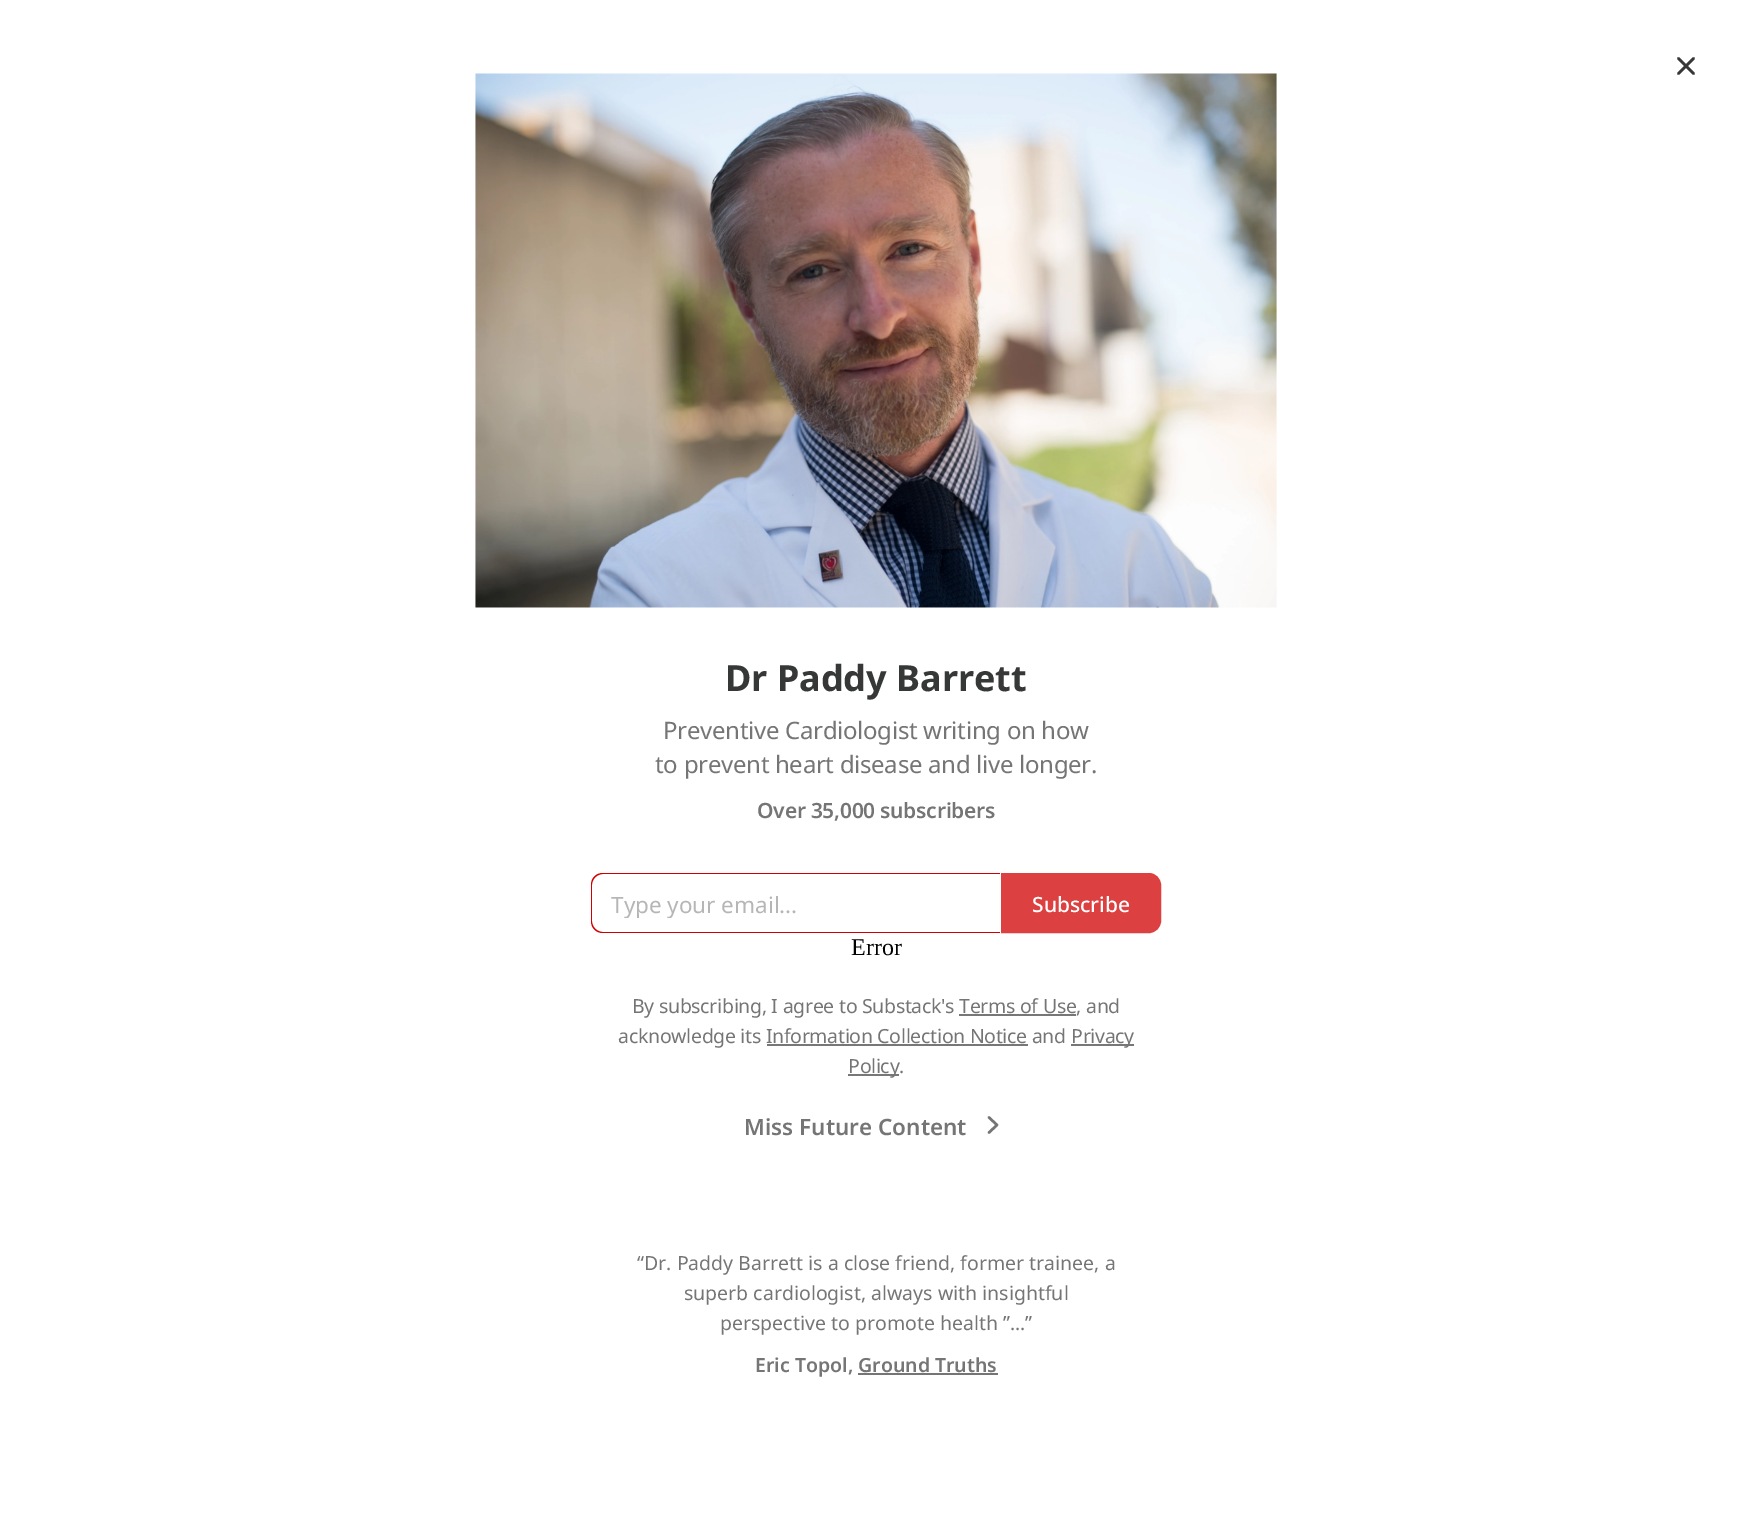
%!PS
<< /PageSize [1751 1528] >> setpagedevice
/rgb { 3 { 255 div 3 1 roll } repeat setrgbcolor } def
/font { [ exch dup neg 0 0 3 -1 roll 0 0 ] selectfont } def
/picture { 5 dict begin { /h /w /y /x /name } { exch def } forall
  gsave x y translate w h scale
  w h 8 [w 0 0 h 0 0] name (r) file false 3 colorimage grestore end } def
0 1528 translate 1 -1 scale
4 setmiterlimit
255 255 255 rgb
0 0 1751 1528 rectfill
54 55 55 rgb
2.5 setlinewidth
1 setlinecap
1 setlinejoin
1693.5 58.5 moveto 1678.5 73.5 lineto 1678.5 58.5 moveto 1693.5 73.5 lineto stroke
(img/1.rgb) 475 73 802 535 picture
209 0 0 rgb
603 873 moveto 1000 873 lineto 1000 933 lineto 603 933 lineto 596 933 591 928 591 921 curveto 591 885 lineto 591 878 596 873 603 873 curveto closepath 603 874 moveto 1000 874 lineto 1000 932 lineto 603 932 lineto 597 932 592 927 592 921 curveto 592 885 lineto 592 879 597 874 603 874 curveto closepath eofill
221 64 64 rgb
1002 874 moveto 1149 874 lineto 1155 874 1160 879 1160 885 curveto 1160 921 lineto 1160 927 1155 932 1149 932 curveto 1002 932 lineto closepath gsave fill grestore
2 setlinewidth
0 setlinecap
0 setlinejoin
stroke
119 119 119 rgb
1071 1044 63 2 rectfill
848 1074 51 2 rectfill
117 117 117 rgb
2.5 setlinewidth
1 setlinecap
1 setlinejoin
989 1132.5 moveto 997 1125 lineto 989 1117.5 lineto stroke
858 1373 140 2 rectfill
/NotoSans-Bold 36 font
54 55 55 rgb
725 691 moveto (Dr Paddy Barrett) show
/NotoSans-Regular 24 font
117 117 117 rgb
663 739 moveto -0.3 0 (Preventive Cardiologist writing on how) ashow
655 773 moveto -0.3 0 (to prevent heart disease and live longer.) ashow
/NotoSans-SemiBold 21 font
757 818 moveto -0.25 0 (Over 35,000 subscribers) ashow
gsave
611 888 372 30 rectclip
/NotoSans-Regular 22.5 font
182 182 182 rgb
611 913 moveto (Type your email...) show
grestore
/NotoSans-Medium 21 font
255 255 255 rgb
1032 912 moveto (Subscribe) show
/LiberationSerif-Regular 24 font
0 0 0 rgb
851 955 moveto (Error) show
/NotoSans-Regular 19.5 font
117 117 117 rgb
632 1013 moveto -0.3 0 (By subscribing, I agree to Substack's Terms of Use, and) ashow
119 119 119 rgb
959 1014 117 2 rectfill
117 117 117 rgb
618 1043 moveto -0.3 0 (acknowledge its Information Collection Notice and) ashow
1071 1043 moveto -0.3 0 (Privacy) ashow
119 119 119 rgb
767 1044 261 2 rectfill
117 117 117 rgb
848 1073 moveto -0.3 0 (Policy.) ashow
/NotoSans-SemiBold 22.5 font
744 1135 moveto (Miss Future Content) show
/NotoSans-Regular 19.5 font
[
  [(“Dr. Paddy Barrett is a close friend, former trainee, a) 637 1270]
  [(superb cardiologist, always with insightful) 684 1300]
  [(perspective to promote health ”...”) 720 1330]
] { aload pop moveto show } forall
/NotoSans-SemiBold 19.5 font
755 1372 moveto (Eric Topol, Ground Truths) show
showpage
